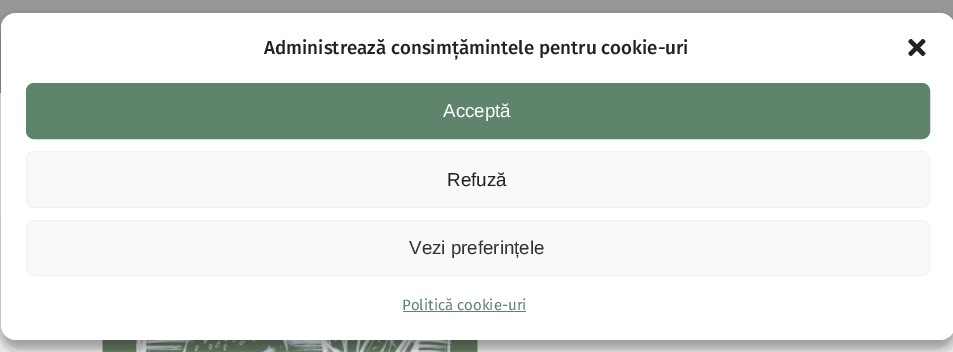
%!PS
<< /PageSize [953 352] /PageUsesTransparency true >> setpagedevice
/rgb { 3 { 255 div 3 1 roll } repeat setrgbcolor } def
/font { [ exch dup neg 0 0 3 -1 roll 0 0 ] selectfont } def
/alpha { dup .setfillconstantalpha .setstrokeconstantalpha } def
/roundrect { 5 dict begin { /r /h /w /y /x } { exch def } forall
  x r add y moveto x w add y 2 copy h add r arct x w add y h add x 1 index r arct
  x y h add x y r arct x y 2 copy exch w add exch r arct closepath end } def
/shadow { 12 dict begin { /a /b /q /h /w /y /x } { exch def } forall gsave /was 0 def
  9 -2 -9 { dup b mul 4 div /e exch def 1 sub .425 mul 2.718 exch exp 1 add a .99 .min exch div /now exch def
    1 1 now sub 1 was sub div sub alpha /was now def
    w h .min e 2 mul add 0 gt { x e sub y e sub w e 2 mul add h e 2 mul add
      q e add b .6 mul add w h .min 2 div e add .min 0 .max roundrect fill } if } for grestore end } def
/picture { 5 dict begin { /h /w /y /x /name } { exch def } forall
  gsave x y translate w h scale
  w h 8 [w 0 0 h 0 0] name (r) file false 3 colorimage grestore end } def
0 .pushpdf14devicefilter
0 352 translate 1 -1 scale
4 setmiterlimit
246 246 246 rgb
0 0 953 352 rectfill
152 152 152 rgb
0 0 953 93 rectfill
255 255 255 rgb
0 93 1 125 rectfill
(img/1.rgb) 102 340 376 12 picture
gsave
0 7 moveto 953 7 lineto 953 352 lineto 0 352 lineto closepath 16 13 moveto 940 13 lineto 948.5 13 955 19.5 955 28 curveto 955 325 lineto 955 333.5 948.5 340 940 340 curveto 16 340 lineto 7.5 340 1 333.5 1 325 curveto 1 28 lineto 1 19.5 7.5 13 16 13 curveto closepath eoclip newpath
0 0 0 rgb
1 20 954 328 15 4 0.23 shadow
grestore
gsave
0 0 moveto 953 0 lineto 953 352 lineto 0 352 lineto closepath 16 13 moveto 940 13 lineto 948.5 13 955 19.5 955 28 curveto 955 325 lineto 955 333.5 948.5 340 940 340 curveto 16 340 lineto 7.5 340 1 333.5 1 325 curveto 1 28 lineto 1 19.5 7.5 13 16 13 curveto closepath eoclip newpath
0 0 0 rgb
1 25 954 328 15 12.5 0.19 shadow
grestore
1 13 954 327 15 roundrect fill
(img/2.rgb) 908 38 18 19 picture
94 132 107 rgb
26.5 83.5 903 55 7.5 roundrect gsave fill grestore
stroke
249 249 249 rgb
26.5 151.5 903 56 7.5 roundrect gsave fill grestore
242 242 242 rgb
stroke
249 249 249 rgb
26.5 220.5 903 55 7.5 roundrect gsave fill grestore
242 242 242 rgb
stroke
94 132 107 rgb
403 311 123 1 rectfill
/FiraSans-Medium 18.75 font
34 34 34 rgb
264 54 moveto (Administrează consimțămintele pentru cookie-uri) show
/LiberationSans-Regular 18.75 font
255 255 255 rgb
443 117 moveto (Acceptă) show
34 34 34 rgb
447 186 moveto (Refuză) show
51 51 51 rgb
409 254 moveto (Vezi preferințele) show
/FiraSans-Regular 15 font
94 132 107 rgb
402 310 moveto (Politică cookie-uri) show
.poppdf14devicefilter showpage
